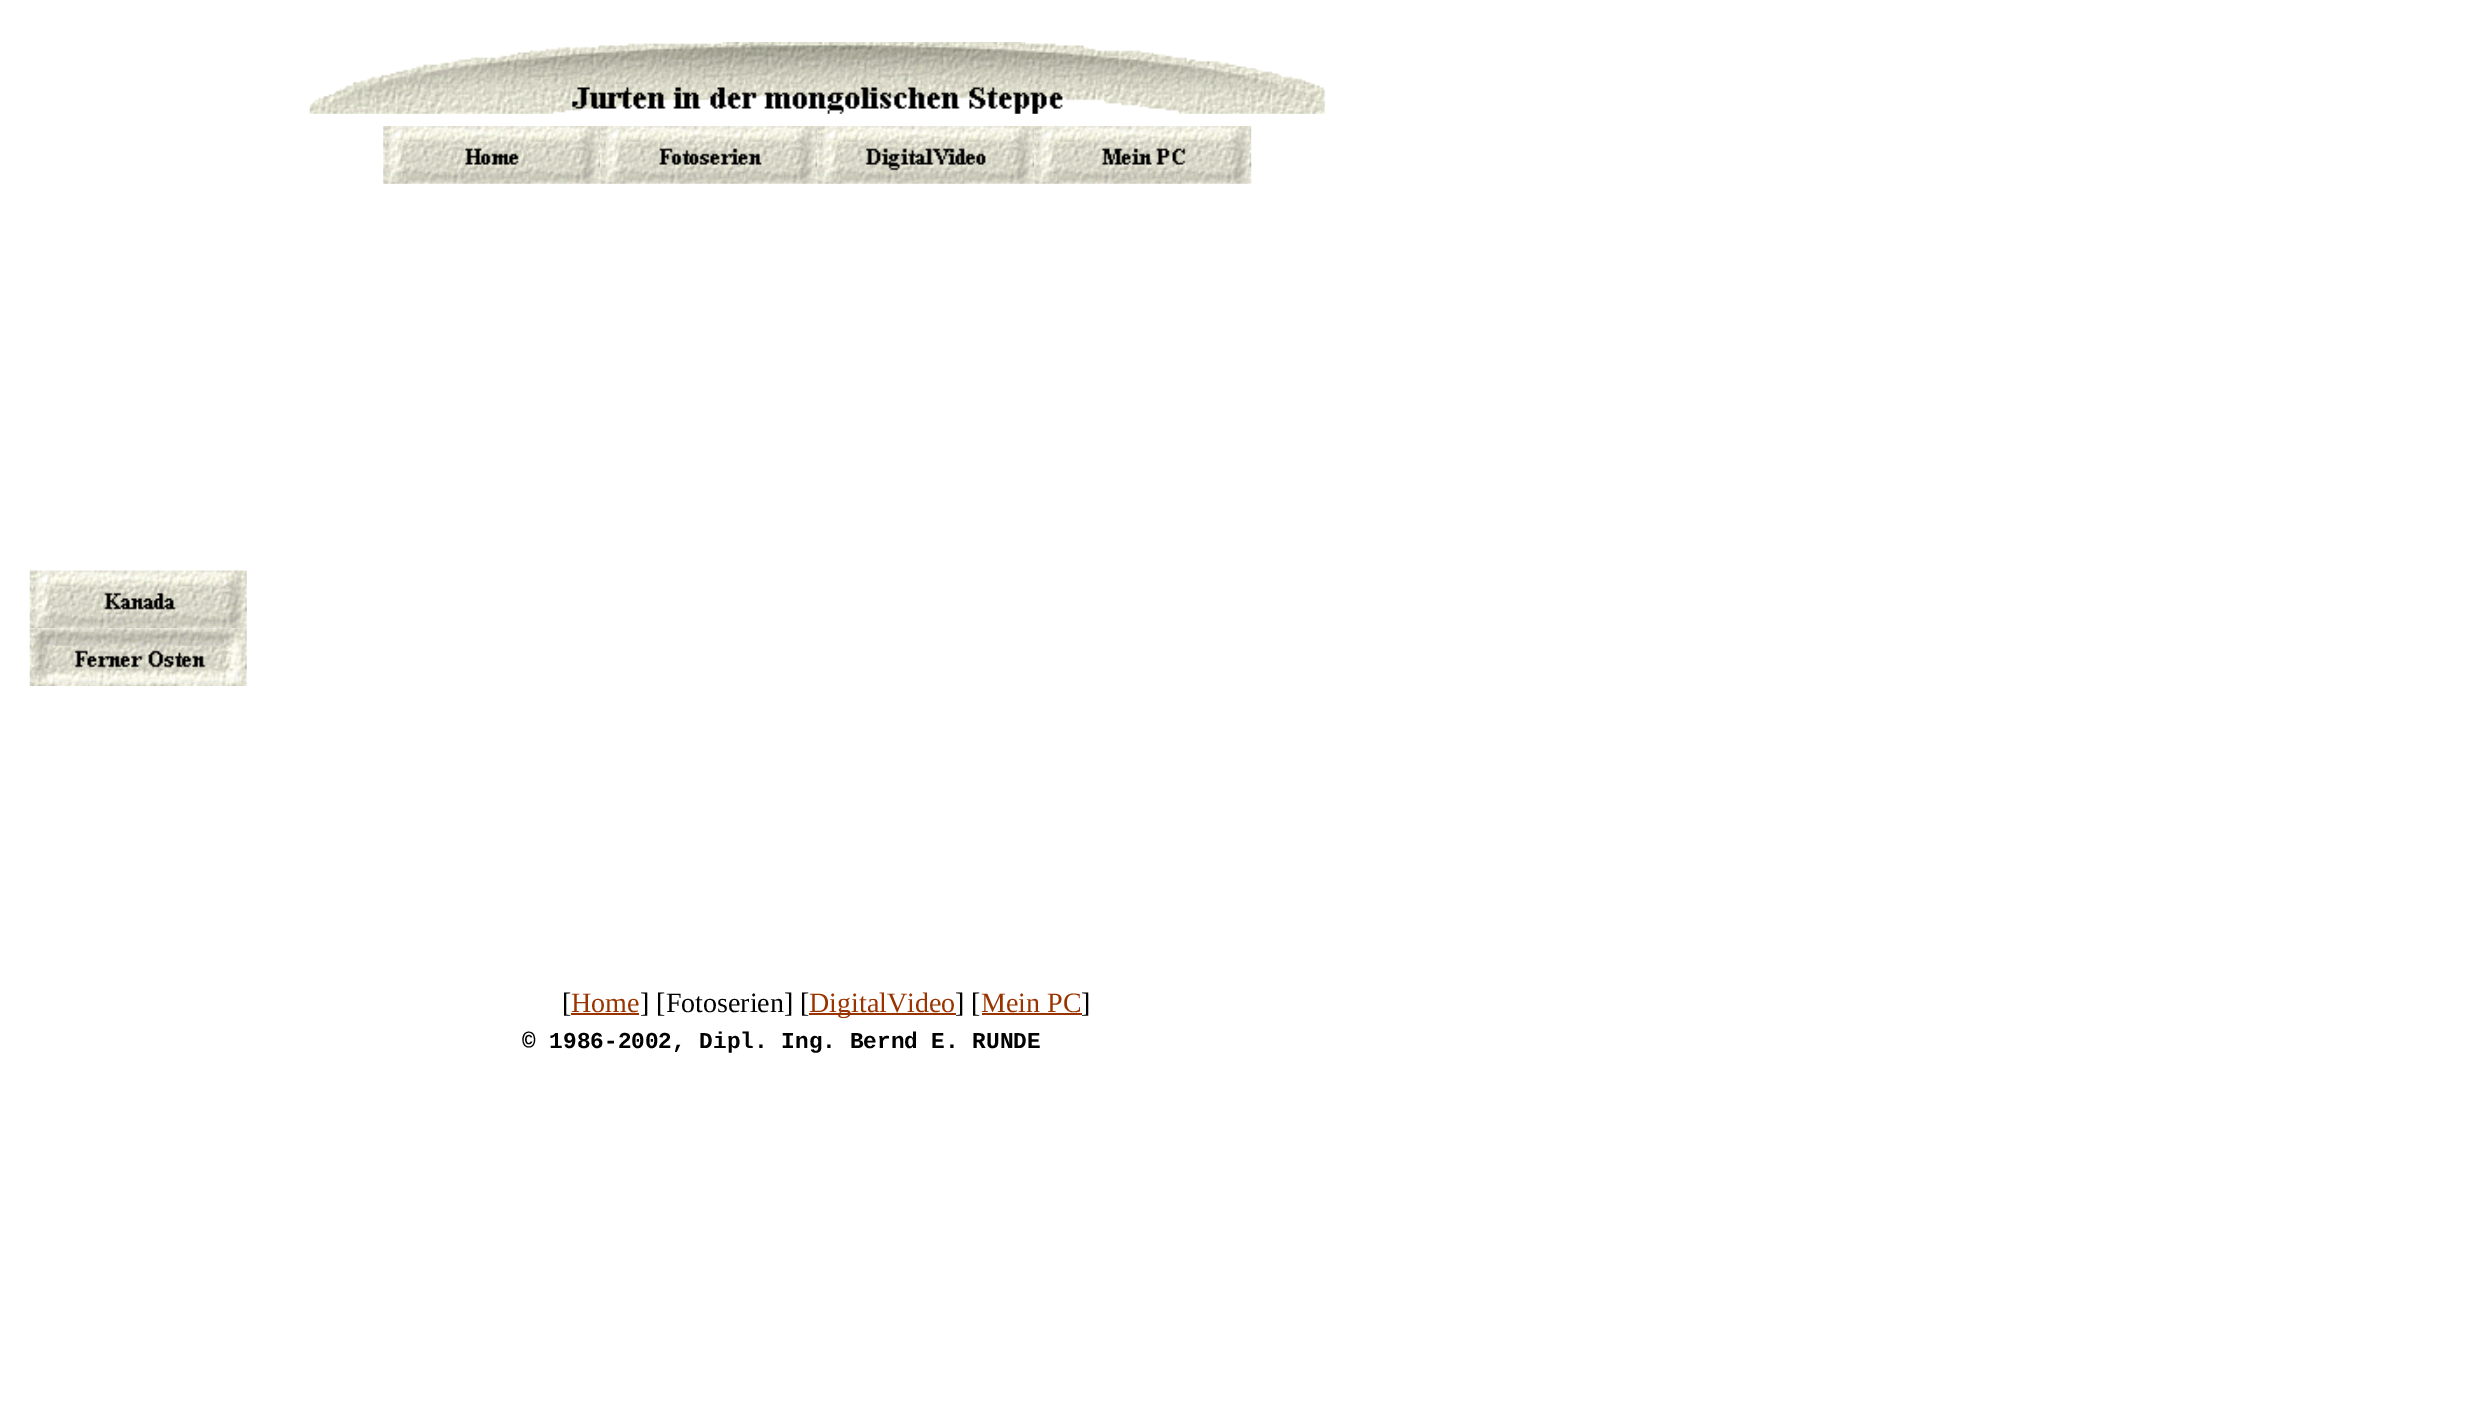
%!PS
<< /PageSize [2475 1420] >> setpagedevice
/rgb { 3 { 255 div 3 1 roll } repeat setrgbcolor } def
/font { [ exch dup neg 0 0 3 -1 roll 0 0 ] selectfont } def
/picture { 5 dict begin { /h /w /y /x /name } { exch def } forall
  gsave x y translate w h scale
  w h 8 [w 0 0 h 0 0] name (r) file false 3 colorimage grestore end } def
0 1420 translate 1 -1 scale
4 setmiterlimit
255 255 255 rgb
0 0 2475 1420 rectfill
(img/1.rgb) 29 570 218 59 picture
(img/2.rgb) 29 628 218 58 picture
(img/3.rgb) 309 42 1016 72 picture
(img/4.rgb) 383 126 218 58 picture
(img/5.rgb) 600 126 218 58 picture
(img/6.rgb) 817 126 218 58 picture
(img/7.rgb) 1034 126 218 58 picture
[
  [571 1013 68 2 153 51 0]
  [809 1013 147 2 153 51 0]
  [982 1013 100 2 153 51 0]
] { aload pop rgb rectfill } forall
/LiberationSerif-Regular 28 font
0 0 0 rgb
562 1012 moveto ([) show
153 51 0 rgb
571 1012 moveto (Home) show
0 0 0 rgb
640 1012 moveto (] [Fotoserien] [) show
153 51 0 rgb
809 1012 moveto (DigitalVideo) show
0 0 0 rgb
955 1012 moveto (] [) show
153 51 0 rgb
981 1012 moveto (Mein PC) show
0 0 0 rgb
1081 1012 moveto (]) show
/LiberationMono-Bold 22.75 font
522 1048 moveto (© 1986-2002, Dipl. Ing. Bernd E. RUNDE) show
showpage
